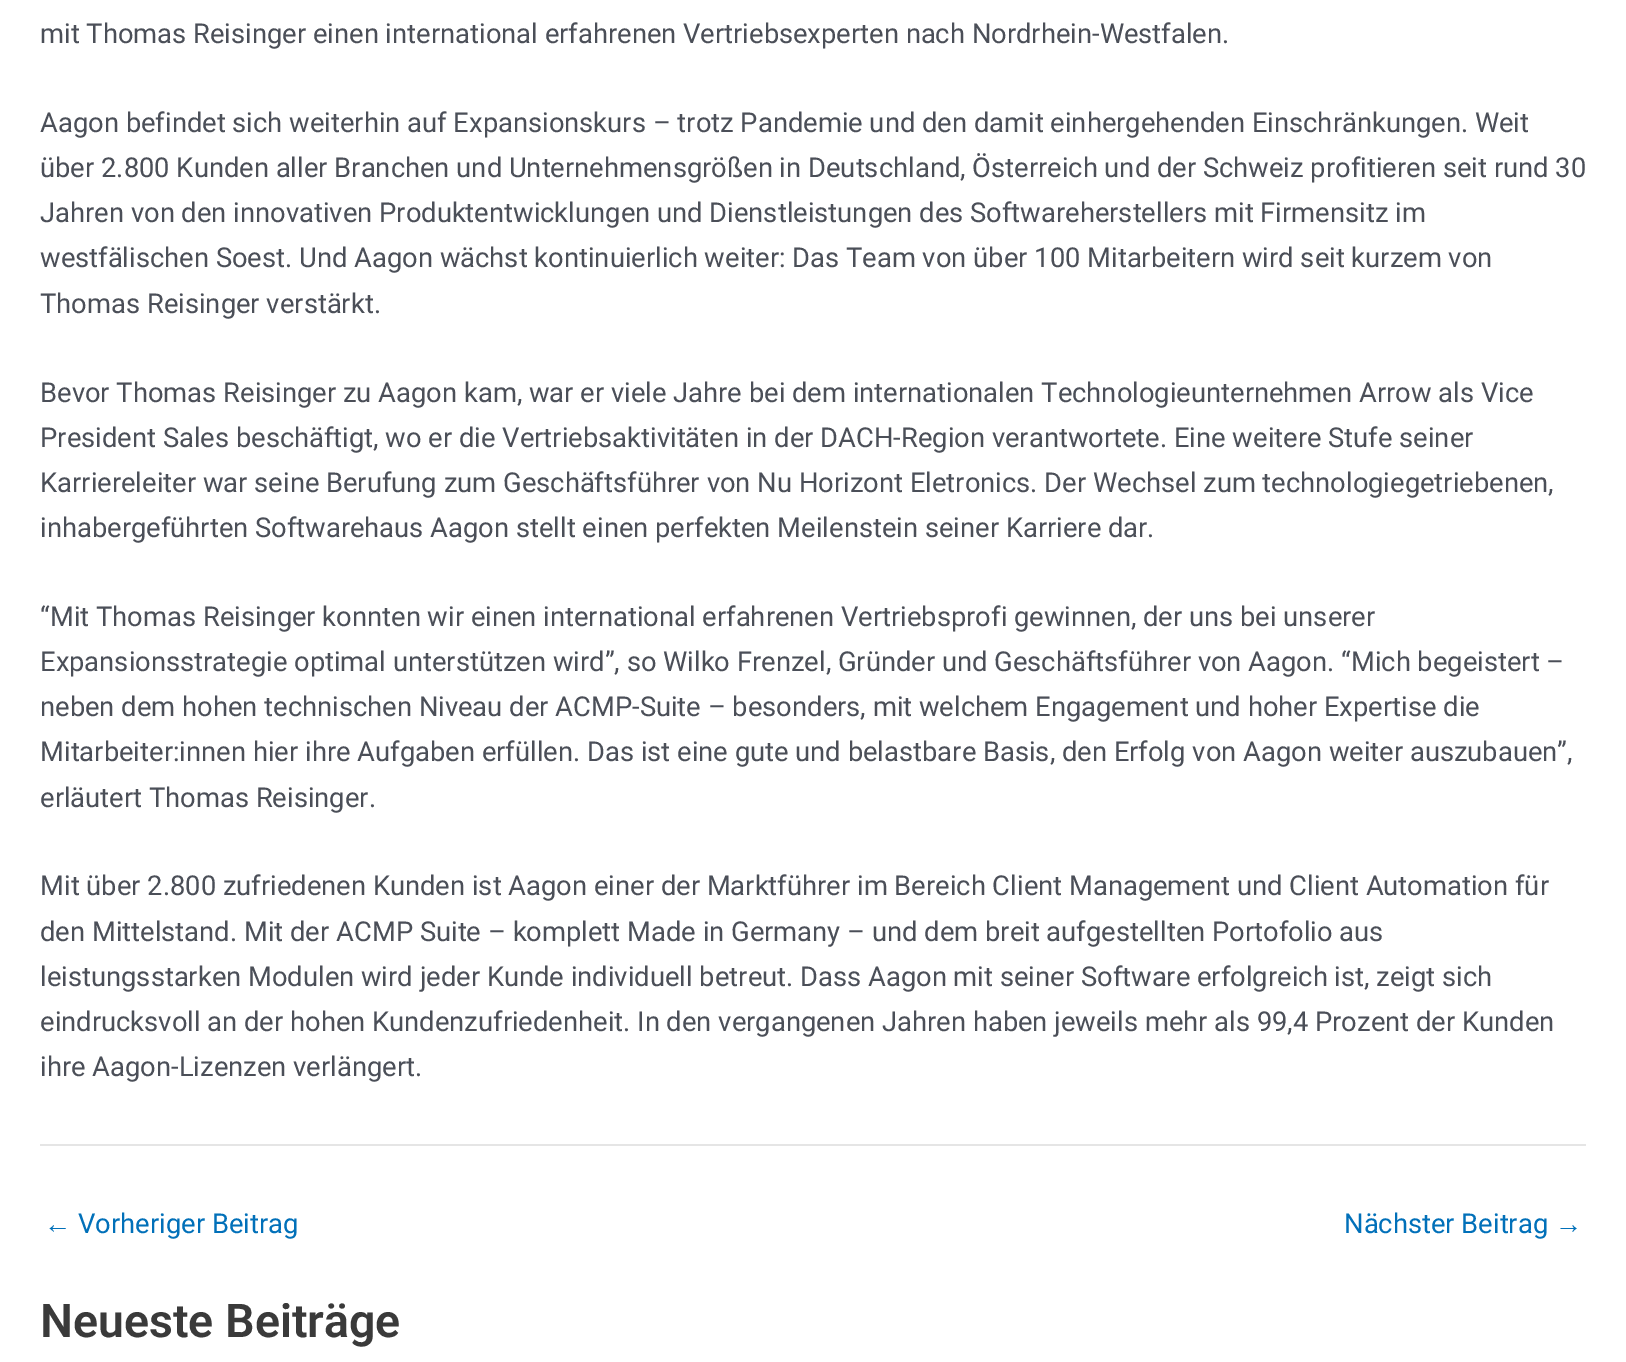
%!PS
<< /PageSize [1626 1362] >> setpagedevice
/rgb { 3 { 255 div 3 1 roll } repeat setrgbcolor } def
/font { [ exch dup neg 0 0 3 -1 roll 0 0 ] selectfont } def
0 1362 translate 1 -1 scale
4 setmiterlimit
255 255 255 rgb
0 0 1626 1362 rectfill
229 229 229 rgb
40 1144 1546 2 rectfill
/Roboto-Regular 27.35 font
75 79 88 rgb
[
  [(mit Thomas Reisinger einen international erfahrenen Vertriebsexperten nach Nordrhein-Westfalen.) 40 43]
  [(Aagon befindet sich weiterhin auf Expansionskurs – trotz Pandemie und den damit einhergehenden Einschränkungen. Weit) 40 132]
  [(über 2.800 Kunden aller Branchen und Unternehmensgrößen in Deutschland, Österreich und der Schweiz profitieren seit rund 30) 40 177]
  [(Jahren von den innovativen Produktentwicklungen und Dienstleistungen des Softwareherstellers mit Firmensitz im) 40 222]
  [(westfälischen Soest. Und Aagon wächst kontinuierlich weiter: Das Team von über 100 Mitarbeitern wird seit kurzem von) 40 267]
  [(Thomas Reisinger verstärkt.) 40 313]
  [(Bevor Thomas Reisinger zu Aagon kam, war er viele Jahre bei dem internationalen Technologieunternehmen Arrow als Vice) 40 402]
  [(President Sales beschäftigt, wo er die Vertriebsaktivitäten in der DACH-Region verantwortete. Eine weitere Stufe seiner) 40 447]
  [(Karriereleiter war seine Berufung zum Geschäftsführer von Nu Horizont Eletronics. Der Wechsel zum technologiegetriebenen,) 40 492]
  [(inhabergeführten Softwarehaus Aagon stellt einen perfekten Meilenstein seiner Karriere dar.) 40 537]
  [(“Mit Thomas Reisinger konnten wir einen international erfahrenen Vertriebsprofi gewinnen, der uns bei unserer) 40 626]
  [(Expansionsstrategie optimal unterstützen wird”, so Wilko Frenzel, Gründer und Geschäftsführer von Aagon. “Mich begeistert –) 40 671]
  [(neben dem hohen technischen Niveau der ACMP-Suite – besonders, mit welchem Engagement und hoher Expertise die) 40 716]
  [(Mitarbeiter:innen hier ihre Aufgaben erfüllen. Das ist eine gute und belastbare Basis, den Erfolg von Aagon weiter auszubauen”,) 40 761]
  [(erläutert Thomas Reisinger.) 40 807]
  [(Mit über 2.800 zufriedenen Kunden ist Aagon einer der Marktführer im Bereich Client Management und Client Automation für) 40 895]
  [(den Mittelstand. Mit der ACMP Suite – komplett Made in Germany – und dem breit aufgestellten Portofolio aus) 40 941]
  [(leistungsstarken Modulen wird jeder Kunde individuell betreut. Dass Aagon mit seiner Software erfolgreich ist, zeigt sich) 40 986]
  [(eindrucksvoll an der hohen Kundenzufriedenheit. In den vergangenen Jahren haben jeweils mehr als 99,4 Prozent der Kunden) 40 1031]
  [(ihre Aagon-Lizenzen verlängert.) 40 1076]
] { aload pop moveto show } forall
/LiberationSans-Regular 27.35 font
1 112 185 rgb
44 1233 moveto (←) show
/Roboto-Regular 27.35 font
78 1233 moveto (Vorheriger Beitrag) show
1344 1233 moveto (Nächster Beitrag) show
/LiberationSans-Regular 27.35 font
1555 1233 moveto (→) show
/Roboto-SemiBold 46.5 font
58 58 58 rgb
40 1337 moveto (Neueste Beiträge) show
showpage
